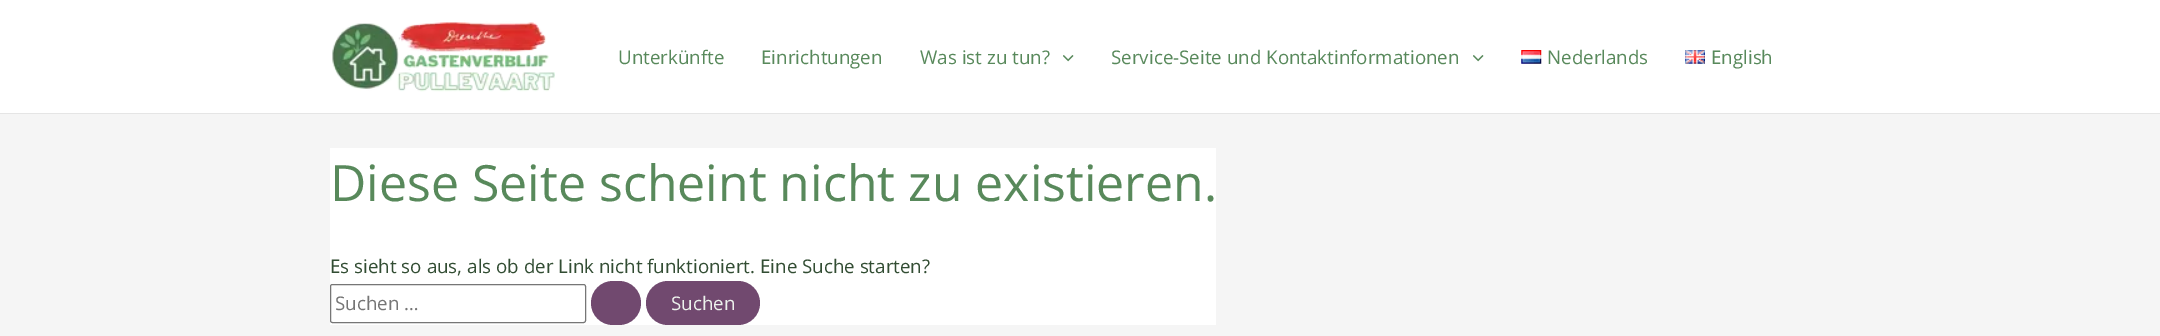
%!PS
<< /PageSize [2160 336] >> setpagedevice
/rgb { 3 { 255 div 3 1 roll } repeat setrgbcolor } def
/font { [ exch dup neg 0 0 3 -1 roll 0 0 ] selectfont } def
/roundrect { 5 dict begin { /r /h /w /y /x } { exch def } forall
  x r add y moveto x w add y 2 copy h add r arct x w add y h add x 1 index r arct
  x y h add x y r arct x y 2 copy exch w add exch r arct closepath end } def
/picture { 5 dict begin { /h /w /y /x /name } { exch def } forall
  gsave x y translate w h scale
  w h 8 [w 0 0 h 0 0] name (r) file false 3 colorimage grestore end } def
0 336 translate 1 -1 scale
4 setmiterlimit
245 245 245 rgb
0 0 2160 336 rectfill
255 255 255 rgb
0 0 2160 113 rectfill
229 229 229 rgb
0 113 2160 1 rectfill
(img/1.rgb) 332 20 223 72 picture
(img/2.rgb) 1063 55 11 7 picture
(img/2.rgb) 1473 55 11 7 picture
(img/3.rgb) 1521 50 21 14 picture
(img/4.rgb) 1685 50 20 14 picture
255 255 255 rgb
330 148 886 177 rectfill
118 118 118 rgb
330.5 284.5 255 38 2 roundrect stroke
113 73 111 rgb
591 281 50 44 22 roundrect fill
646 281 114 44 22 roundrect fill
/OpenSans-Regular 18.75 font
88 137 91 rgb
[
  [(Unterkünfte) 618 64]
  [(Einrichtungen) 761 64]
  [(Was ist zu tun?) 920 64]
  [(Service-Seite und Kontaktinformationen) 1111 64]
  [(Nederlands) 1547 64]
  [(English) 1711 64]
] { aload pop moveto show } forall
/OpenSans-Regular 50 font
330 201 moveto (Diese Seite scheint nicht zu existieren.) show
/OpenSans-Regular 18.75 font
50 77 51 rgb
330 273 moveto (Es sieht so aus, als ob der Link nicht funktioniert. Eine Suche starten?) show
117 117 117 rgb
335 310 moveto (Suchen …) show
237 243 237 rgb
671 310 moveto (Suchen) show
showpage
